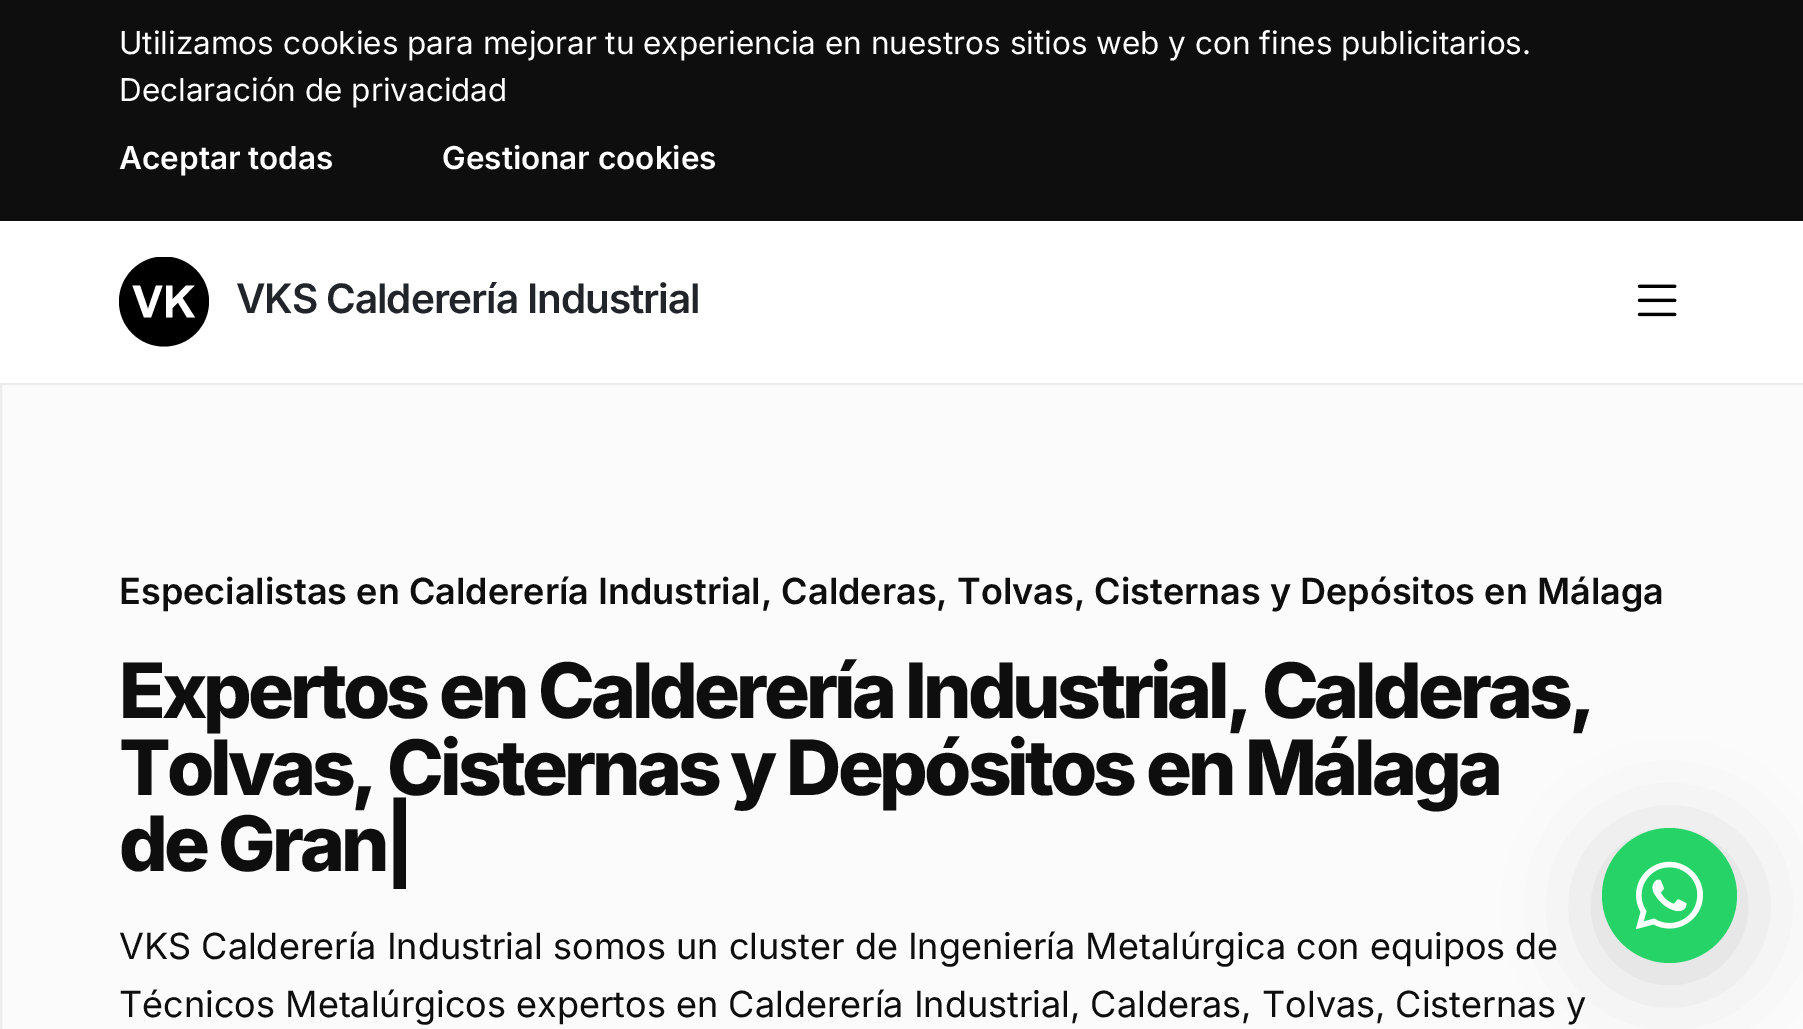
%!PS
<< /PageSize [1803 1029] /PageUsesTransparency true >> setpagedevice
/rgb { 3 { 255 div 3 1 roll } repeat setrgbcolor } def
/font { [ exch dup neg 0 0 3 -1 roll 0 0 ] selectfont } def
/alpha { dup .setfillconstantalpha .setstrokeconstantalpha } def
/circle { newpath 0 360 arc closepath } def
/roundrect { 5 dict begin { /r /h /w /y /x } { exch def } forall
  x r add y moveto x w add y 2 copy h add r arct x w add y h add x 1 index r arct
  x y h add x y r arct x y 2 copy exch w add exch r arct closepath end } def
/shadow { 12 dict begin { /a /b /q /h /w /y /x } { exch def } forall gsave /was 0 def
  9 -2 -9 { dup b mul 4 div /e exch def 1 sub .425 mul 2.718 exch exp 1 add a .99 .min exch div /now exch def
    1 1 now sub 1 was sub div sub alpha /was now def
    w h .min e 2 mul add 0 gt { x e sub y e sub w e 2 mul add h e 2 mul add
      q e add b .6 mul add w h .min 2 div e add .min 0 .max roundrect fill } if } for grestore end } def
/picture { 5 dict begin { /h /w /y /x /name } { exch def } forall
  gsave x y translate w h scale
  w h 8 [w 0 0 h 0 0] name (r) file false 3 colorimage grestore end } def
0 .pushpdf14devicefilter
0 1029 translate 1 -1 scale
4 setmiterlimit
255 255 255 rgb
0 0 1803 1029 rectfill
14 14 14 rgb
0 0 1803 221 rectfill
gsave
119 257 90 90 rectclip
0 0 0 rgb
164 301.5 45 circle fill
grestore
255 255 255 rgb
144 317.5 moveto 132.5 285.5 lineto 140 285.5 lineto 148 309 lineto 156 285.5 lineto 162.5 285.5 lineto 151 317.5 lineto closepath 166 317.5 moveto 166 285.5 lineto 172.5 285.5 lineto 172.5 299.5 lineto 186 285.5 lineto 194.5 285.5 lineto 182.5 298 lineto 195 317.5 lineto 187 317.5 lineto 178 302.5 lineto 172.5 308 lineto 172.5 317.5 lineto closepath fill
(img/1.rgb) 1637 284 40 33 picture
251 251 251 rgb
1 384 moveto 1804 384 lineto 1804 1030 lineto 1 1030 lineto closepath gsave fill grestore
236 236 236 rgb
2 setlinewidth
stroke
0 0 0 rgb
1602 839 135 135 67.5 45 0.16 shadow
37 211 102 rgb
1669.5 895.5 67.5 circle fill
(img/2.rgb) 1635 861 68 69 picture
/Inter-Regular 31.5 font
255 255 255 rgb
119 54 moveto (Utilizamos cookies para mejorar tu experiencia en nuestros sitios web y con fines publicitarios.) show
119 101 moveto (Declaración de privacidad) show
/Inter-SemiBold 31.5 font
119 169 moveto (Aceptar todas) show
442 169 moveto (Gestionar cookies) show
/Inter-SemiBold 40.5 font
33 37 41 rgb
236 313 moveto -1.1 0 (VKS Calderería Industrial) ashow
/Inter-SemiBold 36 font
14 14 14 rgb
119 604 moveto (Especialistas en Calderería Industrial, Calderas, Tolvas, Cisternas y Depósitos en Málaga) show
/Inter-ExtraBold 76.5 font
119 718 moveto -4.05 0 (Expertos en Calderería Industrial, Calderas,) ashow
119 795 moveto -4.05 0 (Tolvas, Cisternas y Depósitos en Málaga) ashow
119 871 moveto -4.05 0 (de Gran|) ashow
/Inter-Regular 36 font
119 959 moveto (VKS Calderería Industrial somos un cluster de Ingeniería Metalúrgica con equipos de) show
119 1017 moveto (Técnicos Metalúrgicos expertos en Calderería Industrial, Calderas, Tolvas, Cisternas y) show
.poppdf14devicefilter showpage
